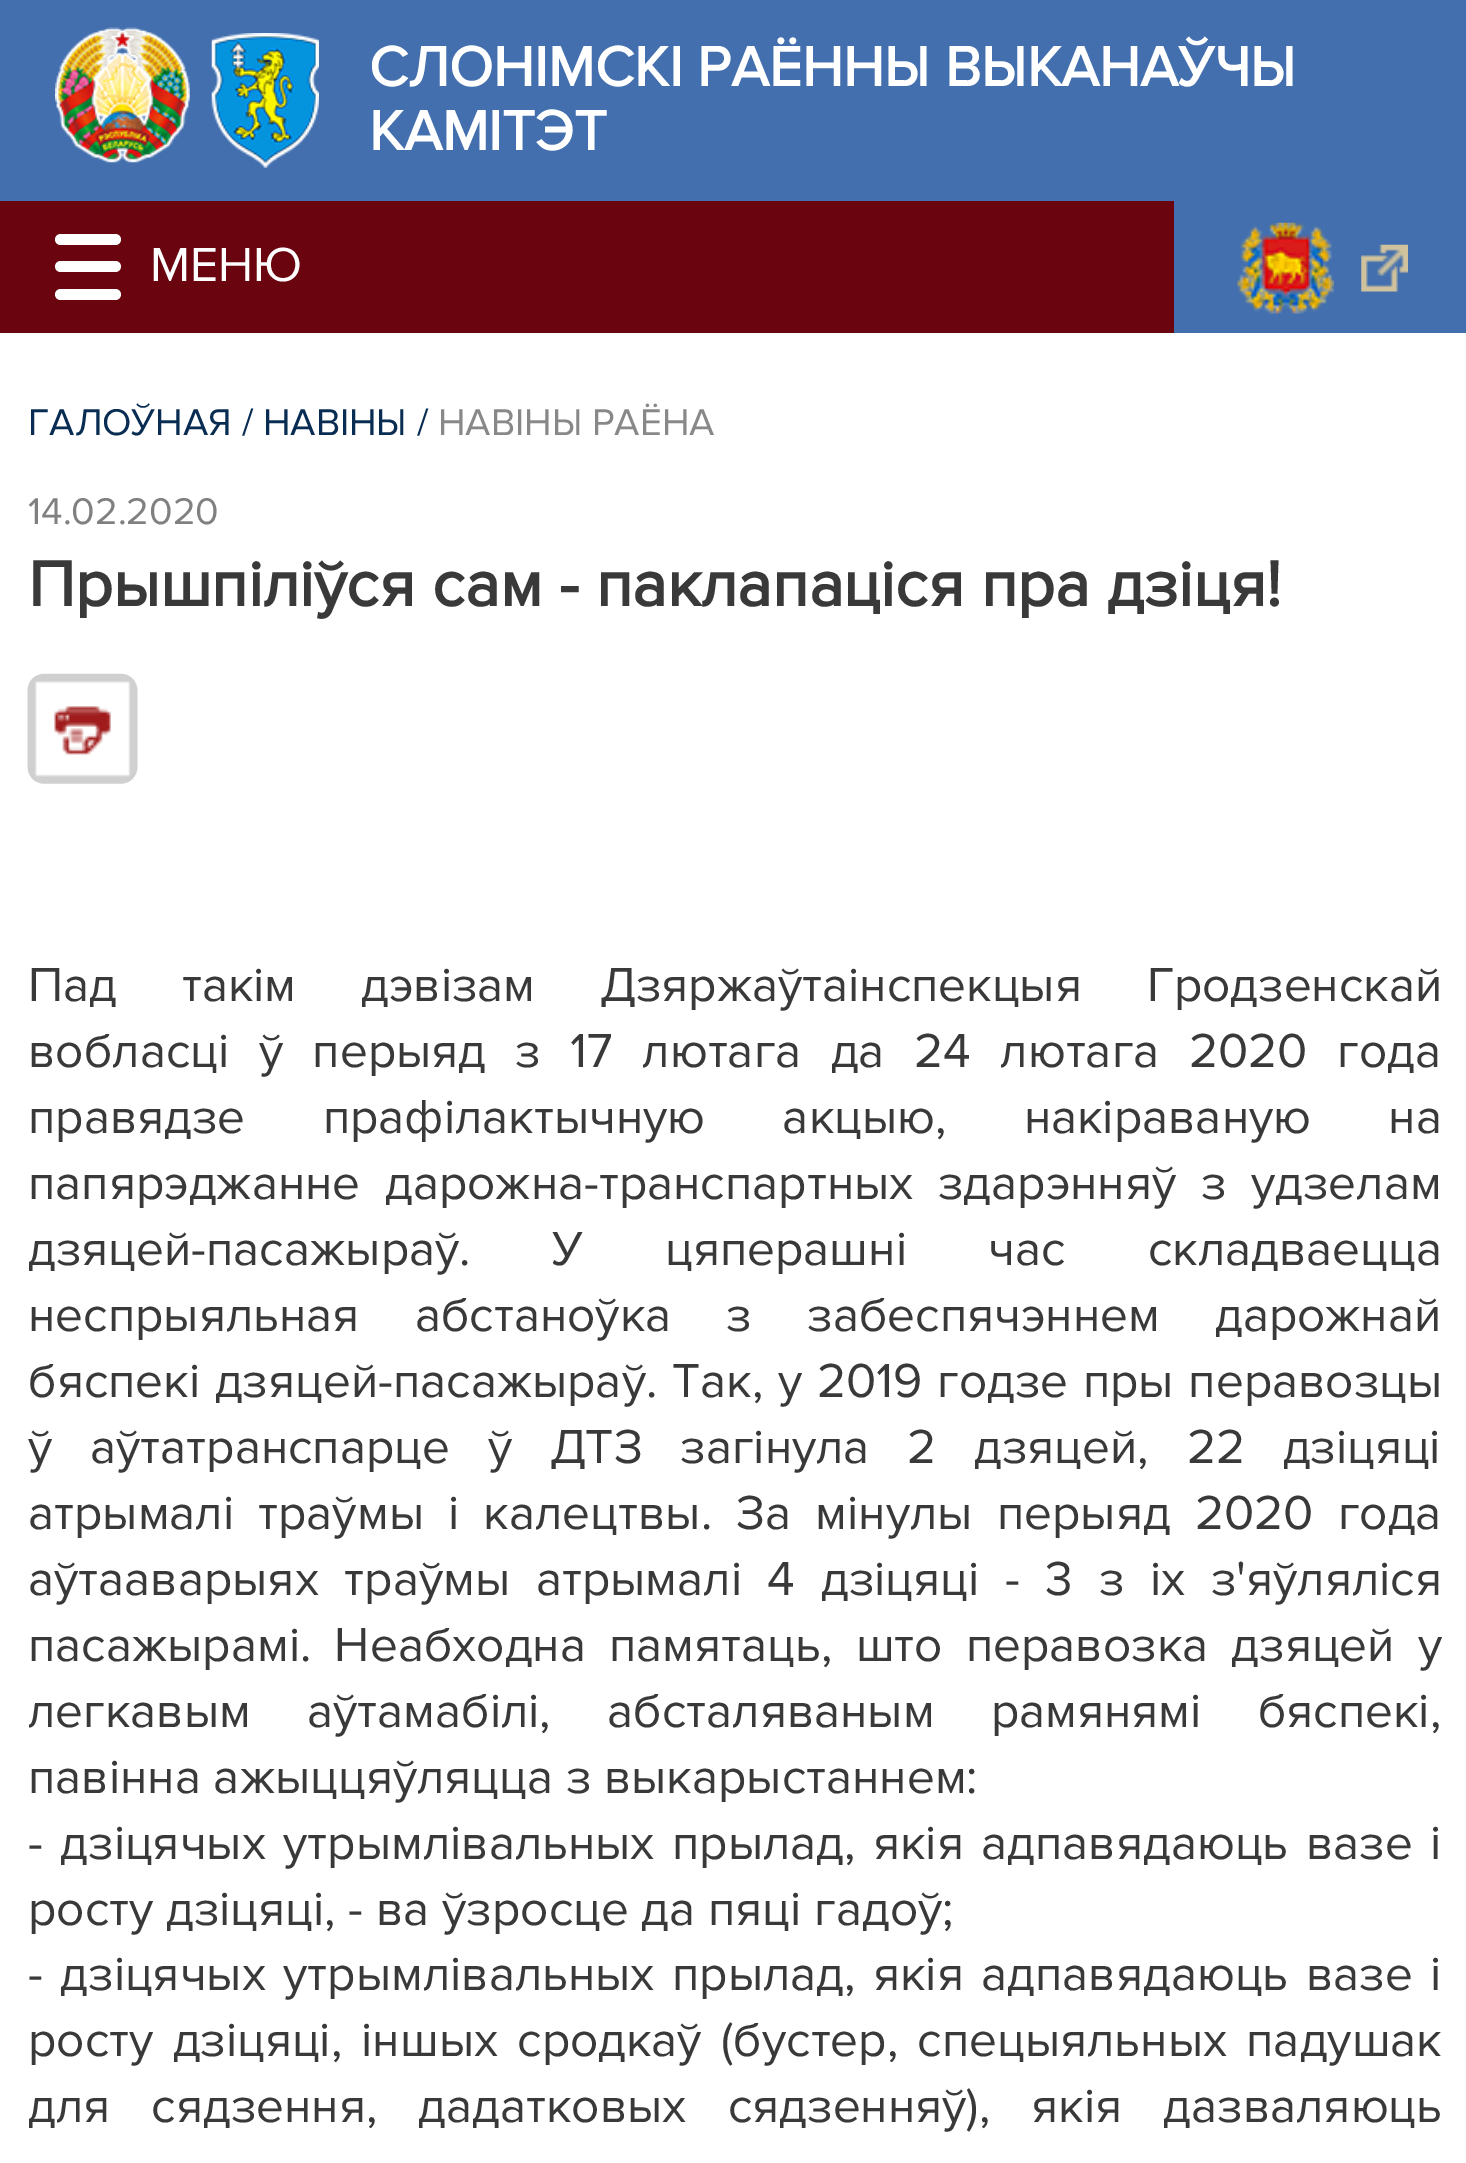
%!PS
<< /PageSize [1466 2163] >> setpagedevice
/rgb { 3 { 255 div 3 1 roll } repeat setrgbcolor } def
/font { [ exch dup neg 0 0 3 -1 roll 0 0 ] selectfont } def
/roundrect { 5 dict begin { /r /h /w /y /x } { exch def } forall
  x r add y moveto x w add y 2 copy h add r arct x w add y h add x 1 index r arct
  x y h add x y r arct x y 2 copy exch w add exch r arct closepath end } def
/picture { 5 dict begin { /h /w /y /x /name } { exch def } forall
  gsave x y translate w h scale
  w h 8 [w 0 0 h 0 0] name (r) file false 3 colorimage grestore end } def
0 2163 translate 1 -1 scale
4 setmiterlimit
255 255 255 rgb
0 0 1466 2163 rectfill
67 111 174 rgb
0 0 1466 201 rectfill
(img/1.rgb) 55 27 135 136 picture
(img/2.rgb) 211 33 108 135 picture
106 5 15 rgb
0 201 1174 132 rectfill
67 111 174 rgb
1174 201 292 132 rectfill
(img/3.rgb) 1237 222 97 92 picture
(img/4.rgb) 1361 244 47 48 picture
255 255 255 rgb
55 261 66 11 5.5 roundrect fill
55 234 66 11 5.5 roundrect fill
55 289 66 11 5.5 roundrect fill
(img/5.rgb) 27 673 111 111 picture
/ProximaNova-Bold 57.75 font
369 86 moveto (СЛОНIМСКI РАЁННЫ ВЫКАНАЎЧЫ) show
369 150 moveto (КАМІТЭТ) show
/ProximaNova-Regular 49.5 font
150 281 moveto (МЕНЮ) show
/ProximaNova-Regular 38.5 font
8 44 82 rgb
28 435 moveto (ГАЛОЎНАЯ / НАВIНЫ /) show
136 136 136 rgb
438 435 moveto (НАВIНЫ РАЁНА) show
128 128 128 rgb
28 524 moveto (14.02.2020) show
/ProximaNova-Bold 66 font
57 57 57 rgb
28 606 moveto (Прышпіліўся сам - паклапаціся пра дзіця!) show
/ProximaNova-Regular 49.5 font
28 1001 moveto 52 0 32 (Пад такім дэвізам Дзяржаўтаінспекцыя Гродзенскай) widthshow
28 1067 moveto 16.75 0 32 (вобласці ў перыяд з 17 лютага да 24 лютага 2020 года) widthshow
28 1133 moveto 64.5 0 32 (правядзе прафілактычную акцыю, накіраваную на) widthshow
28 1199 moveto 12 0 32 (папярэджанне дарожна-транспартных здарэнняў з удзелам) widthshow
28 1265 moveto 69 0 32 (дзяцей-пасажыраў. У цяперашні час складваецца) widthshow
28 1331 moveto 42.5 0 32 (неспрыяльная абстаноўка з забеспячэннем дарожнай) widthshow
28 1397 moveto 2 0 32 (бяспекі дзяцей-пасажыраў. Так, у 2019 годзе пры перавозцы) widthshow
28 1463 moveto 25 0 32 (ў аўтатранспарце ў ДТЗ загінула 2 дзяцей, 22 дзіцяці) widthshow
28 1529 moveto 11.5 0 32 (атрымалі траўмы і калецтвы. За мінулы перыяд 2020 года) widthshow
28 1595 moveto 13 0 32 (аўтааварыях траўмы атрымалі 4 дзіцяці - 3 з іх з'яўляліся) widthshow
28 1661 moveto 10.5 0 32 (пасажырамі. Неабходна памятаць, што перавозка дзяцей у) widthshow
28 1727 moveto 43.5 0 32 (легкавым аўтамабілі, абсталяваным рамянямі бяспекі,) widthshow
28 1793 moveto (павінна ажыццяўляцца з выкарыстаннем:) show
28 1859 moveto 4.75 0 32 (- дзіцячых утрымлівальных прылад, якія адпавядаюць вазе і) widthshow
28 1925 moveto (росту дзіцяці, - ва ўзросце да пяці гадоў;) show
28 1990 moveto 4.75 0 32 (- дзіцячых утрымлівальных прылад, якія адпавядаюць вазе і) widthshow
28 2056 moveto 6.5 0 32 (росту дзіцяці, іншых сродкаў \(бустер, спецыяльных падушак) widthshow
28 2122 moveto 28.5 0 32 (для сядзення, дадатковых сядзенняў\), якія дазваляюць) widthshow
showpage
